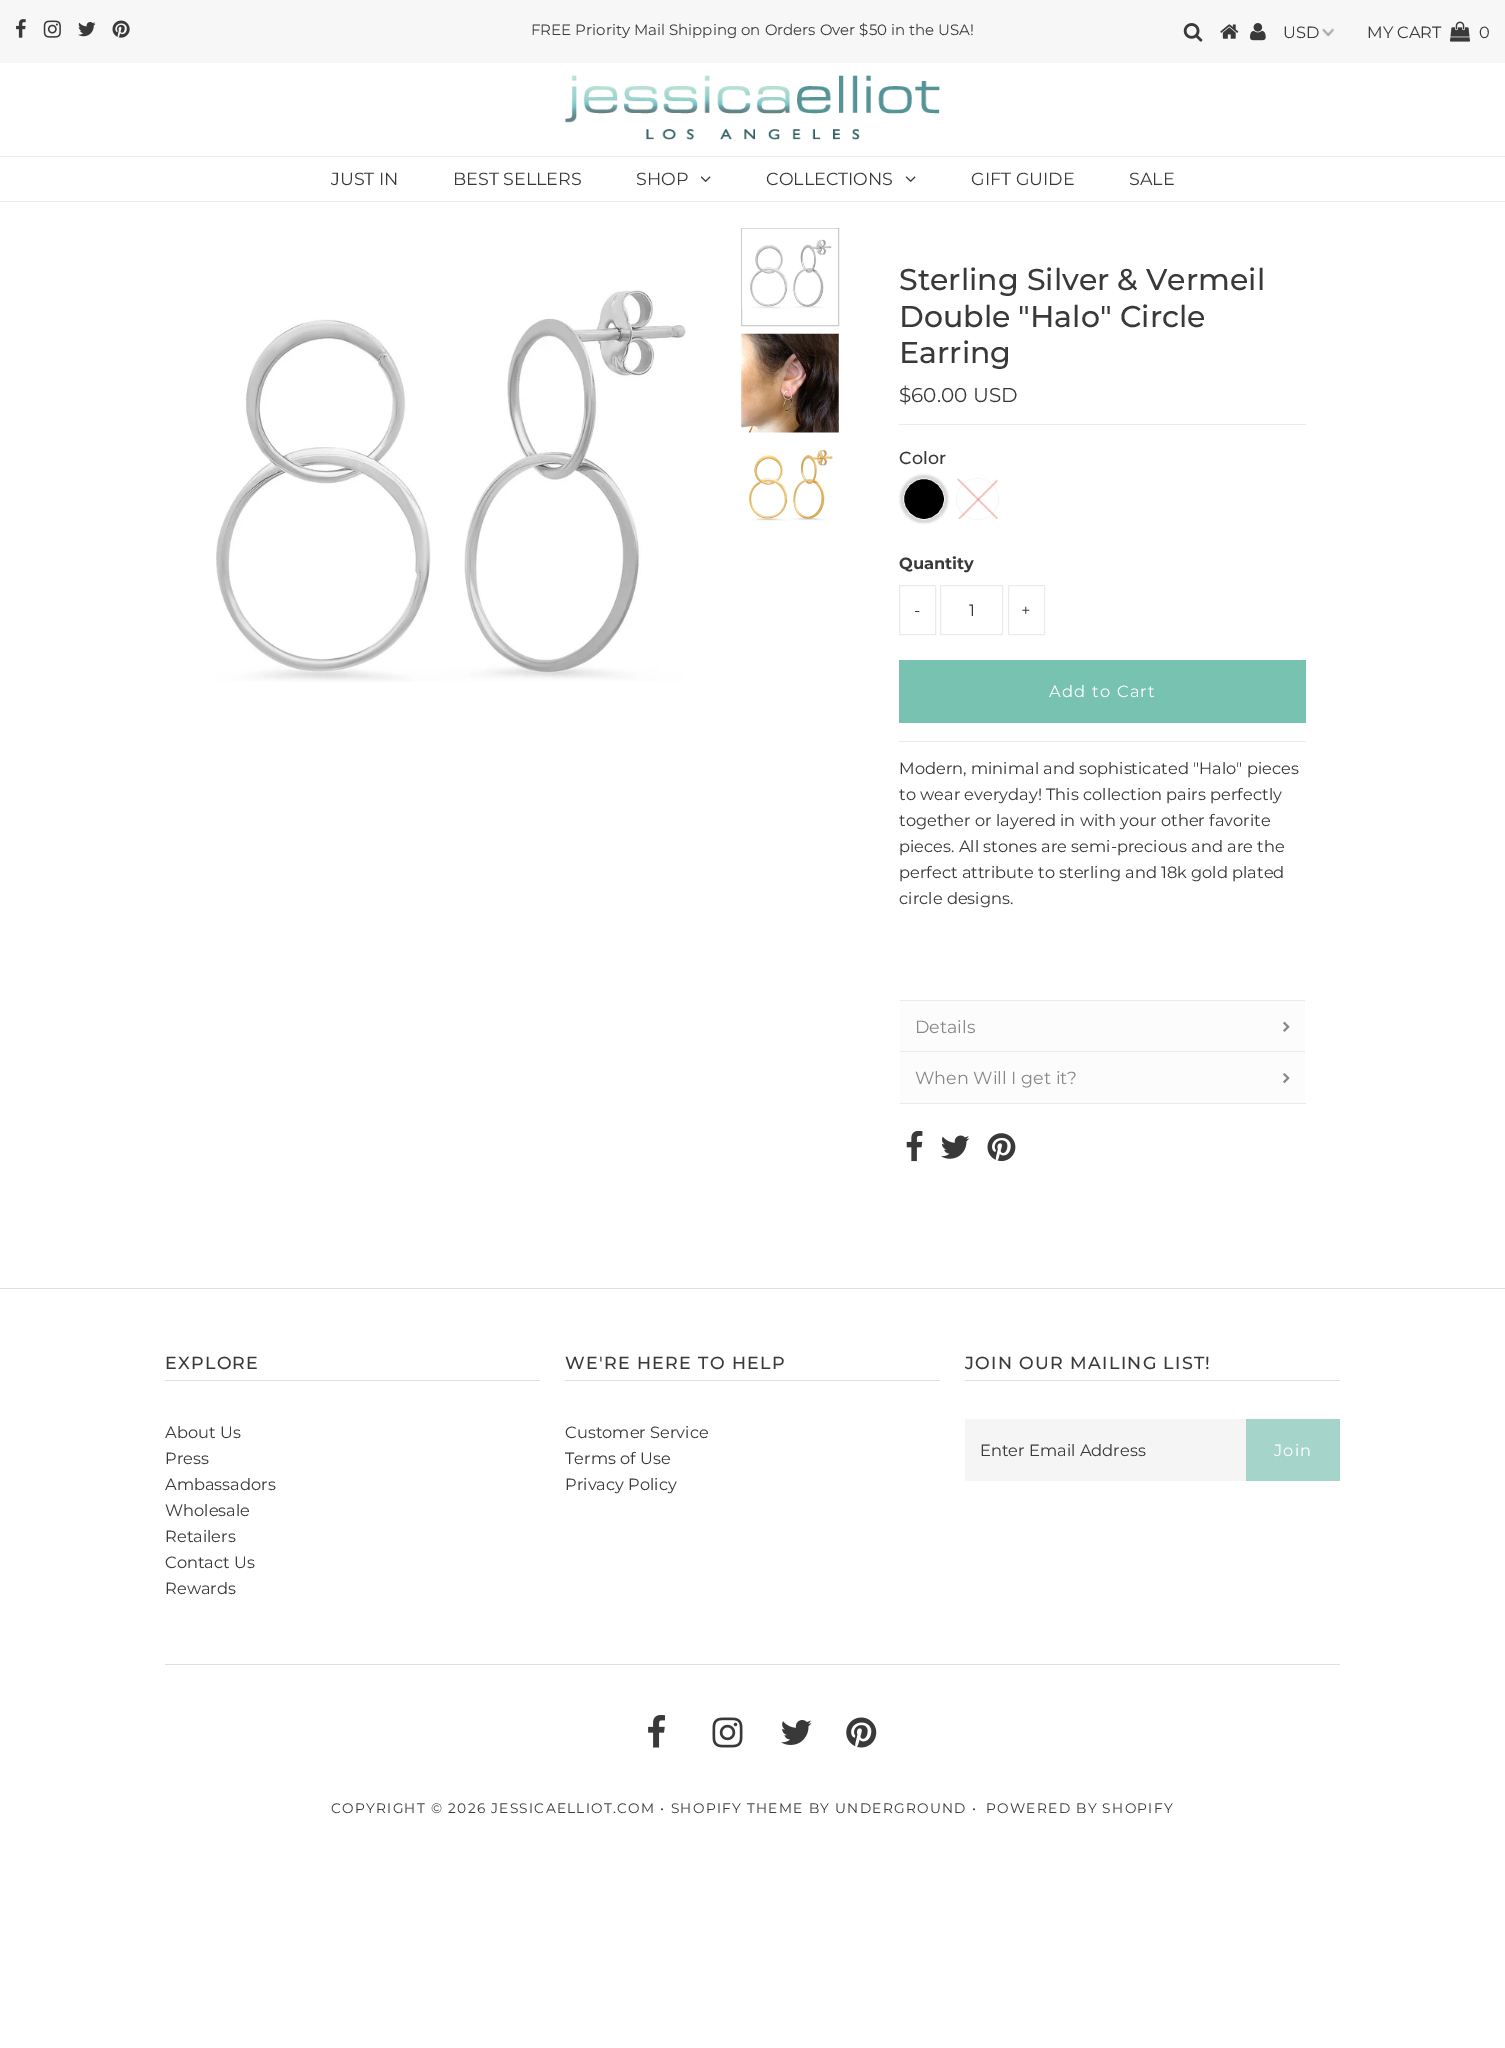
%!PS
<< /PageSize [1505 2048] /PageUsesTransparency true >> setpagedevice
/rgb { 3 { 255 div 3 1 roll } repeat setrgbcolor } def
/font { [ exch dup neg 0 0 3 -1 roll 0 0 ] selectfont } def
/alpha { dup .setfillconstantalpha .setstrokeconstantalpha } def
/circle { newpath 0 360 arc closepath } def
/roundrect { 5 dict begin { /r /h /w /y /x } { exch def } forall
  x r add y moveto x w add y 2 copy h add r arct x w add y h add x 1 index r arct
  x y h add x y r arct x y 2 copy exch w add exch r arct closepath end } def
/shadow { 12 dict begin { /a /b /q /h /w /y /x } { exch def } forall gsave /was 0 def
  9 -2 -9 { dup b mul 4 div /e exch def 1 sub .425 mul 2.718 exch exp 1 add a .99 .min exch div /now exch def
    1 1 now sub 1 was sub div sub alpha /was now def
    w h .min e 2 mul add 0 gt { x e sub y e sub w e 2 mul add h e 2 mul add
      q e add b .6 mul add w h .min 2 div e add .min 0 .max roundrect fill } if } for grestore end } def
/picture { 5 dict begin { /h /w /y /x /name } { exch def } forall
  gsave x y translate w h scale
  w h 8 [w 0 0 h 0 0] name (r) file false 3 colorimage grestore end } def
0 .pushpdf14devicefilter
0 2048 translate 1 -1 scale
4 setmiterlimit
255 255 255 rgb
0 0 1505 2048 rectfill
247 247 247 rgb
0 0 1505 63 rectfill
(img/1.rgb) 16 19 10 19 picture
(img/2.rgb) 43 20 18 18 picture
(img/3.rgb) 78 22 18 15 picture
(img/4.rgb) 112 20 18 18 picture
(img/5.rgb) 1183 23 20 19 picture
(img/6.rgb) 1220 24 19 15 picture
(img/7.rgb) 1250 23 16 18 picture
(img/8.rgb) 1322 28 12 9 picture
(img/9.rgb) 1450 21 20 21 picture
(img/10.rgb) 565 75 375 65 picture
235 235 235 rgb
0 156 1505 1 rectfill
0 201 1505 1 rectfill
(img/11.rgb) 700 176 11 6 picture
(img/11.rgb) 905 176 11 6 picture
(img/12.rgb) 216 289 470 393 picture
204 204 204 rgb
741.5 228.5 97 97 rectstroke
(img/13.rgb) 742 228 96 81 picture
(img/14.rgb) 741 333 98 100 picture
(img/15.rgb) 748 448 85 74 picture
235 235 235 rgb
899 741 407 1 rectfill
899 424 407 1 rectfill
214 214 214 rgb
900 475 48 48 24 1 1 shadow
0 0 0 rgb
924 499 20.5 circle gsave fill grestore
238 238 238 rgb
stroke
245 245 245 rgb
956.5 478.5 42 41 20.5 roundrect stroke
(img/16.rgb) 957 478 41 41 picture
235 235 235 rgb
899.5 585.5 36 49 rectstroke
940.5 585.5 62 49 rectstroke
1008.5 585.5 36 49 rectstroke
[
  [899 660 407 63 120 194 178]
  [900 1001 405 50 252 252 252]
  [899 1000 407 1 234 234 234]
  [1305 1000 1 1 255 255 255]
  [899 1000 1 1 255 255 255]
] { aload pop rgb rectfill } forall
(img/17.rgb) 1283 1021 7 11 picture
[
  [900 1052 405 51 252 252 252]
  [899 1051 407 1 234 234 234]
  [1305 1051 1 1 255 255 255]
  [899 1103 407 1 234 234 234]
  [899 1051 1 53 255 255 255]
] { aload pop rgb rectfill } forall
(img/18.rgb) 1283 1073 7 11 picture
(img/19.rgb) 906 1130 17 32 picture
(img/20.rgb) 941 1135 29 24 picture
(img/21.rgb) 987 1133 29 29 picture
[
  [0 1288 1505 1 223 223 223]
  [165 1380 375 1 223 223 223]
  [565 1380 375 1 223 223 223]
  [965 1380 375 1 223 223 223]
  [965 1419 281 62 245 245 245]
  [1246 1419 94 62 165 212 202]
  [165 1664 1175 1 223 223 223]
] { aload pop rgb rectfill } forall
(img/22.rgb) 648 1715 17 33 picture
(img/23.rgb) 712 1717 31 31 picture
(img/24.rgb) 781 1720 31 25 picture
(img/25.rgb) 846 1717 31 31 picture
/Montserrat-Regular 15 font
57 57 57 rgb
531 35 moveto (FREE Priority Mail Shipping on Orders Over $50 in the USA!) show
/Montserrat-Regular 16.25 font
[
  [(USD) 1283 38]
  [(MY CART) 1367 38]
  [(0) 1479 38]
] { aload pop moveto show } forall
/Montserrat-Regular 17.5 font
[
  [(JUST IN) 331 185]
  [(BEST SELLERS) 453 185]
  [(SHOP) 636 185]
  [(COLLECTIONS) 766 185]
  [(GIFT GUIDE) 971 185]
  [(SALE) 1129 185]
] { aload pop moveto show } forall
/Montserrat-Medium 30 font
[
  [(Sterling Silver & Vermeil) 899 290]
  [(Double "Halo" Circle) 899 327]
  [(Earring) 899 363]
] { aload pop moveto show } forall
/Montserrat-Regular 20 font
899 402 moveto ($60.00 USD) show
/Montserrat-Medium 17.5 font
899 464 moveto (Color) show
/Montserrat-Bold 16.25 font
899 569 moveto (Quantity) show
/Montserrat-Regular 16.25 font
[
  [(-) 914 616]
  [(1) 969 616]
  [(+) 1021 616]
] { aload pop moveto show } forall
255 255 255 rgb
1049 697 moveto 1.25 0 (Add to Cart) ashow
57 57 57 rgb
[
  [(Modern, minimal and sophisticated "Halo" pieces) 899 774]
  [(to wear everyday! This collection pairs perfectly) 899 800]
  [(together or layered in with your other favorite) 899 826]
  [(pieces. All stones are semi-precious and are the) 899 852]
  [(perfect attribute to sterling and 18k gold plated) 899 878]
  [(circle designs.) 899 904]
] { aload pop moveto show } forall
/Montserrat-Regular 17.5 font
136 136 136 rgb
915 1033 moveto (Details) show
915 1084 moveto (When Will I get it?) show
/Montserrat-Medium 17.5 font
57 57 57 rgb
165 1369 moveto 1.25 0 (EXPLORE) ashow
/Montserrat-Regular 16.25 font
[
  [(About Us) 165 1438]
  [(Press) 165 1464]
  [(Ambassadors) 165 1490]
  [(Wholesale) 165 1516]
  [(Retailers) 165 1542]
  [(Contact Us) 165 1568]
  [(Rewards) 165 1594]
] { aload pop moveto show } forall
/Montserrat-Medium 17.5 font
565 1369 moveto 1.25 0 (WE'RE HERE TO HELP) ashow
/Montserrat-Regular 16.25 font
[
  [(Customer Service) 565 1438]
  [(Terms of Use) 565 1464]
  [(Privacy Policy) 565 1490]
] { aload pop moveto show } forall
/Montserrat-Medium 17.5 font
965 1369 moveto 1.25 0 (JOIN OUR MAILING LIST!) ashow
/Montserrat-Regular 16.25 font
980 1456 moveto (Enter Email Address) show
255 255 255 rgb
1274 1456 moveto 1.25 0 (Join) ashow
/Montserrat-Regular 13.75 font
57 57 57 rgb
331 1813 moveto 1.25 0 (COPYRIGHT © 2026 JESSICAELLIOT.COM • SHOPIFY THEME BY UNDERGROUND •) ashow
986 1813 moveto 1.25 0 (POWERED BY SHOPIFY) ashow
.poppdf14devicefilter showpage
